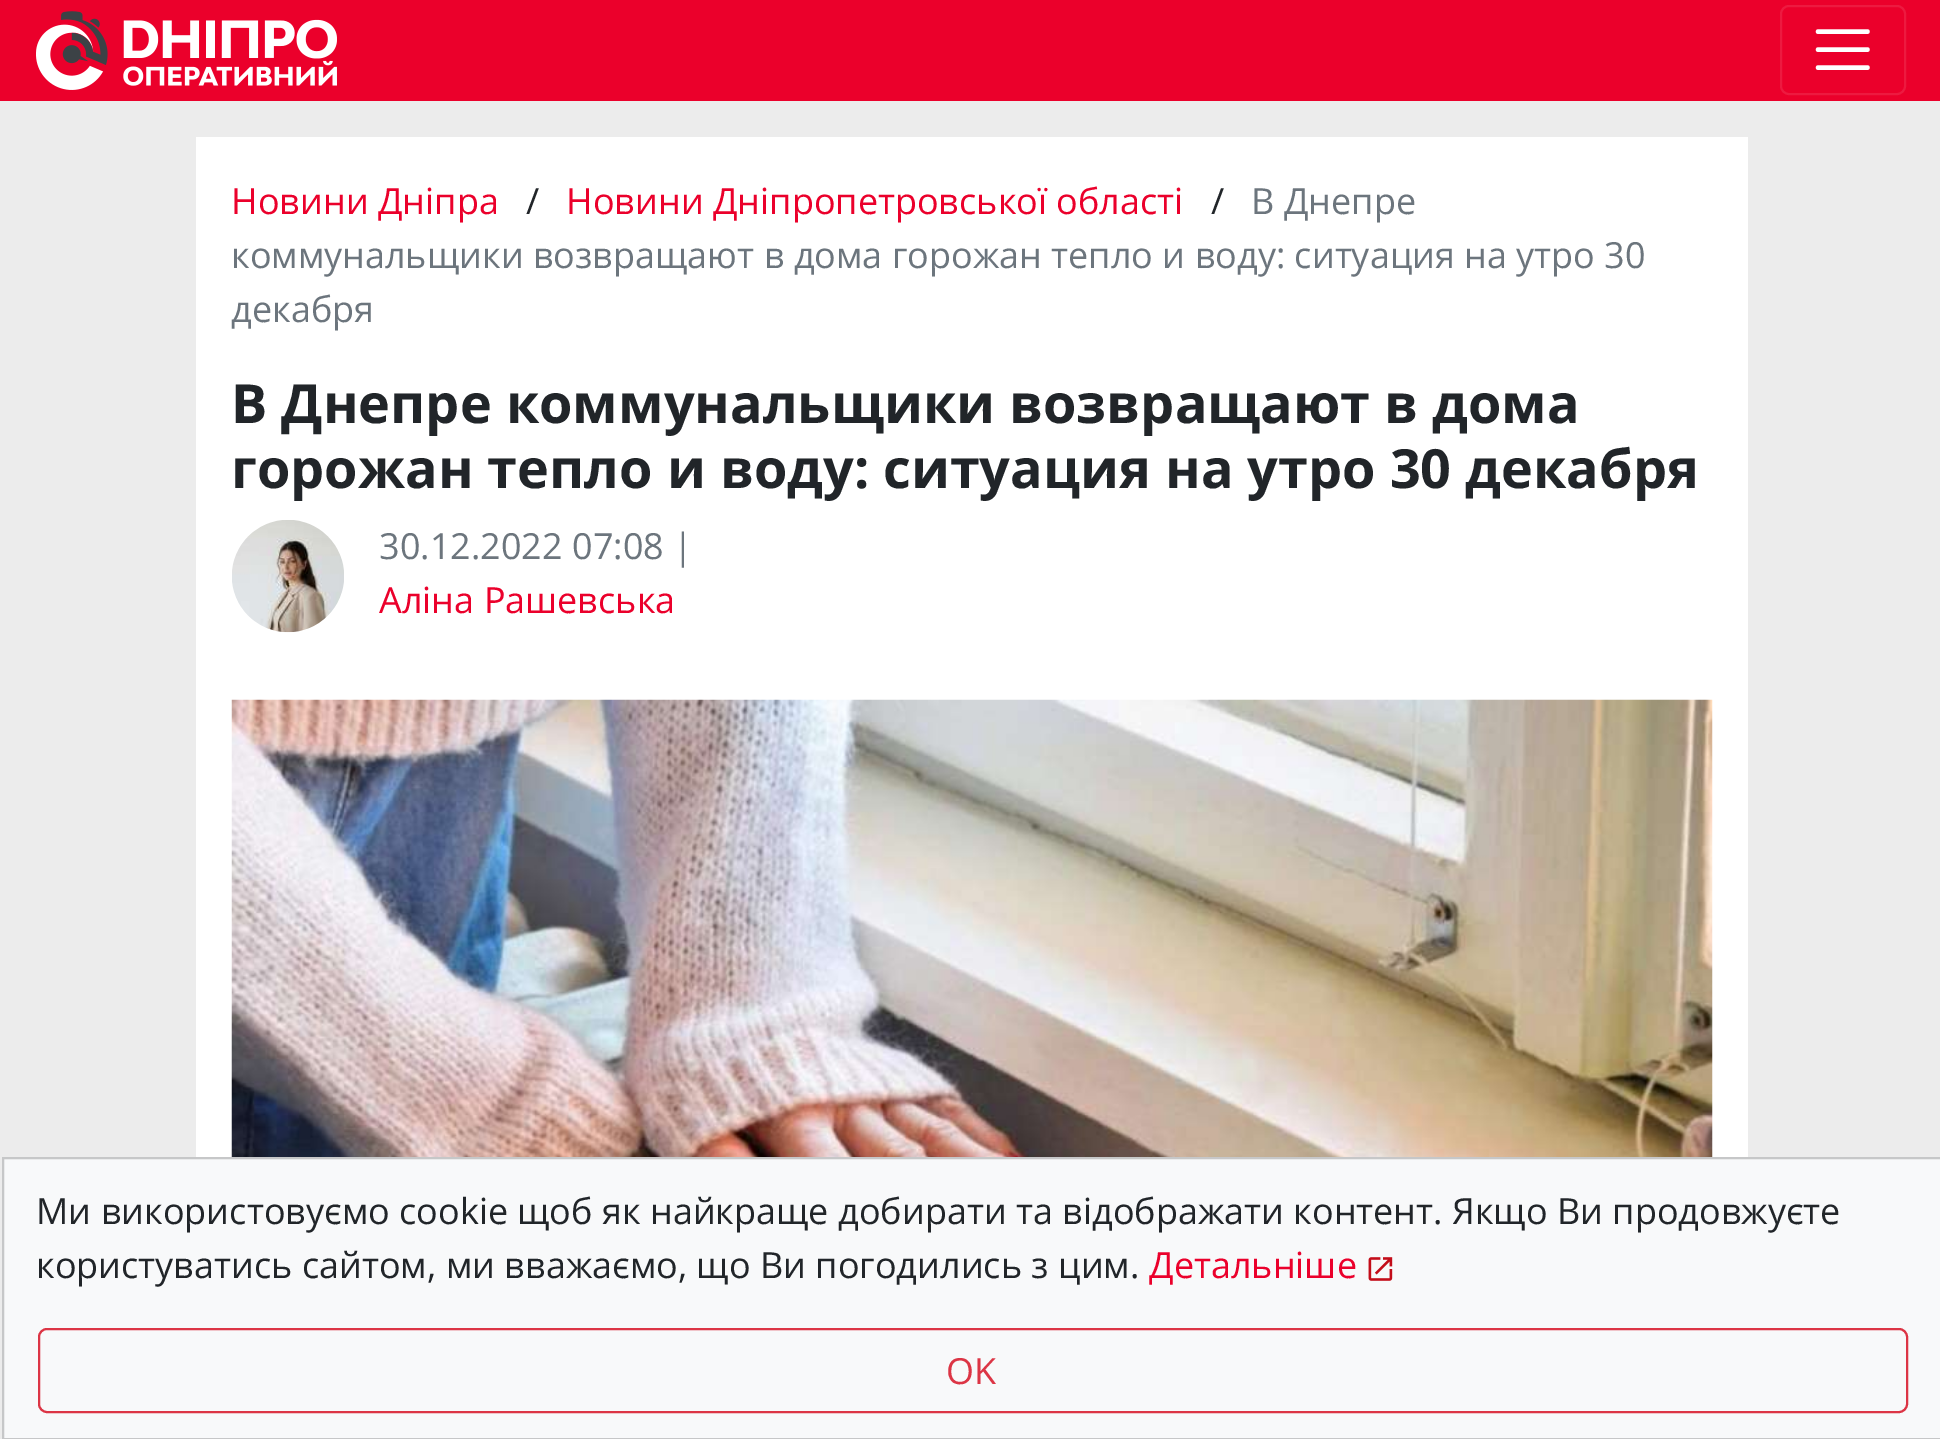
%!PS
<< /PageSize [1940 1439] >> setpagedevice
/rgb { 3 { 255 div 3 1 roll } repeat setrgbcolor } def
/font { [ exch dup neg 0 0 3 -1 roll 0 0 ] selectfont } def
/roundrect { 5 dict begin { /r /h /w /y /x } { exch def } forall
  x r add y moveto x w add y 2 copy h add r arct x w add y h add x 1 index r arct
  x y h add x y r arct x y 2 copy exch w add exch r arct closepath end } def
/picture { 5 dict begin { /h /w /y /x /name } { exch def } forall
  gsave x y translate w h scale
  w h 8 [w 0 0 h 0 0] name (r) file false 3 colorimage grestore end } def
0 1439 translate 1 -1 scale
4 setmiterlimit
236 236 236 rgb
0 0 1940 1439 rectfill
235 0 43 rgb
0 0 1940 101 rectfill
(img/1.rgb) 36 11 301 79 picture
237 26 64 rgb
2 setlinewidth
1781 6 124 88 8 roundrect stroke
255 255 255 rgb
4.5 setlinewidth
1 setlinecap
1818 31.5 moveto 1867.5 31.5 lineto 1818 49.5 moveto 1867.5 49.5 lineto 1818 67.5 moveto 1867.5 67.5 lineto stroke
196 137 1552 1020 rectfill
(img/2.rgb) 232 520 112 113 picture
(img/3.rgb) 231 699 1482 458 picture
248 249 250 rgb
3 1158 moveto 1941 1158 lineto 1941 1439 lineto 3 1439 lineto closepath gsave fill grestore
198 199 200 rgb
2 setlinewidth
0 setlinecap
stroke
(img/4.rgb) 1368 1257 25 24 picture
220 53 69 rgb
39 1329 1868 83 8 roundrect stroke
/OpenSans-Regular 36 font
235 0 43 rgb
231 214 moveto (Новини Дніпра) show
33 37 41 rgb
526 214 moveto (/) show
235 0 43 rgb
566 214 moveto (Новини Дніпропетровської області) show
33 37 41 rgb
1211 214 moveto (/) show
108 117 125 rgb
[
  [(В Днепре) 1251 214]
  [(коммунальщики возвращают в дома горожан тепло и воду: ситуация на утро 30) 231 268]
  [(декабря) 231 322]
] { aload pop moveto show } forall
/OpenSans-Bold 54 font
33 37 41 rgb
231 423 moveto (В Днепре коммунальщики возвращают в дома) show
231 488 moveto (горожан тепло и воду: ситуация на утро 30 декабря) show
/OpenSans-Regular 36 font
108 117 125 rgb
379 559 moveto (30.12.2022 07:08 |) show
235 0 43 rgb
379 613 moveto (Аліна Рашевська) show
33 37 41 rgb
36 1224 moveto (Ми використовуємо cookie щоб як найкраще добирати та відображати контент. Якщо Ви продовжуєте) show
36 1278 moveto (користуватись сайтом, ми вважаємо, що Ви погодились з цим.) show
235 0 43 rgb
1149 1278 moveto (Детальніше) show
220 53 69 rgb
946 1384 moveto (OK) show
showpage
